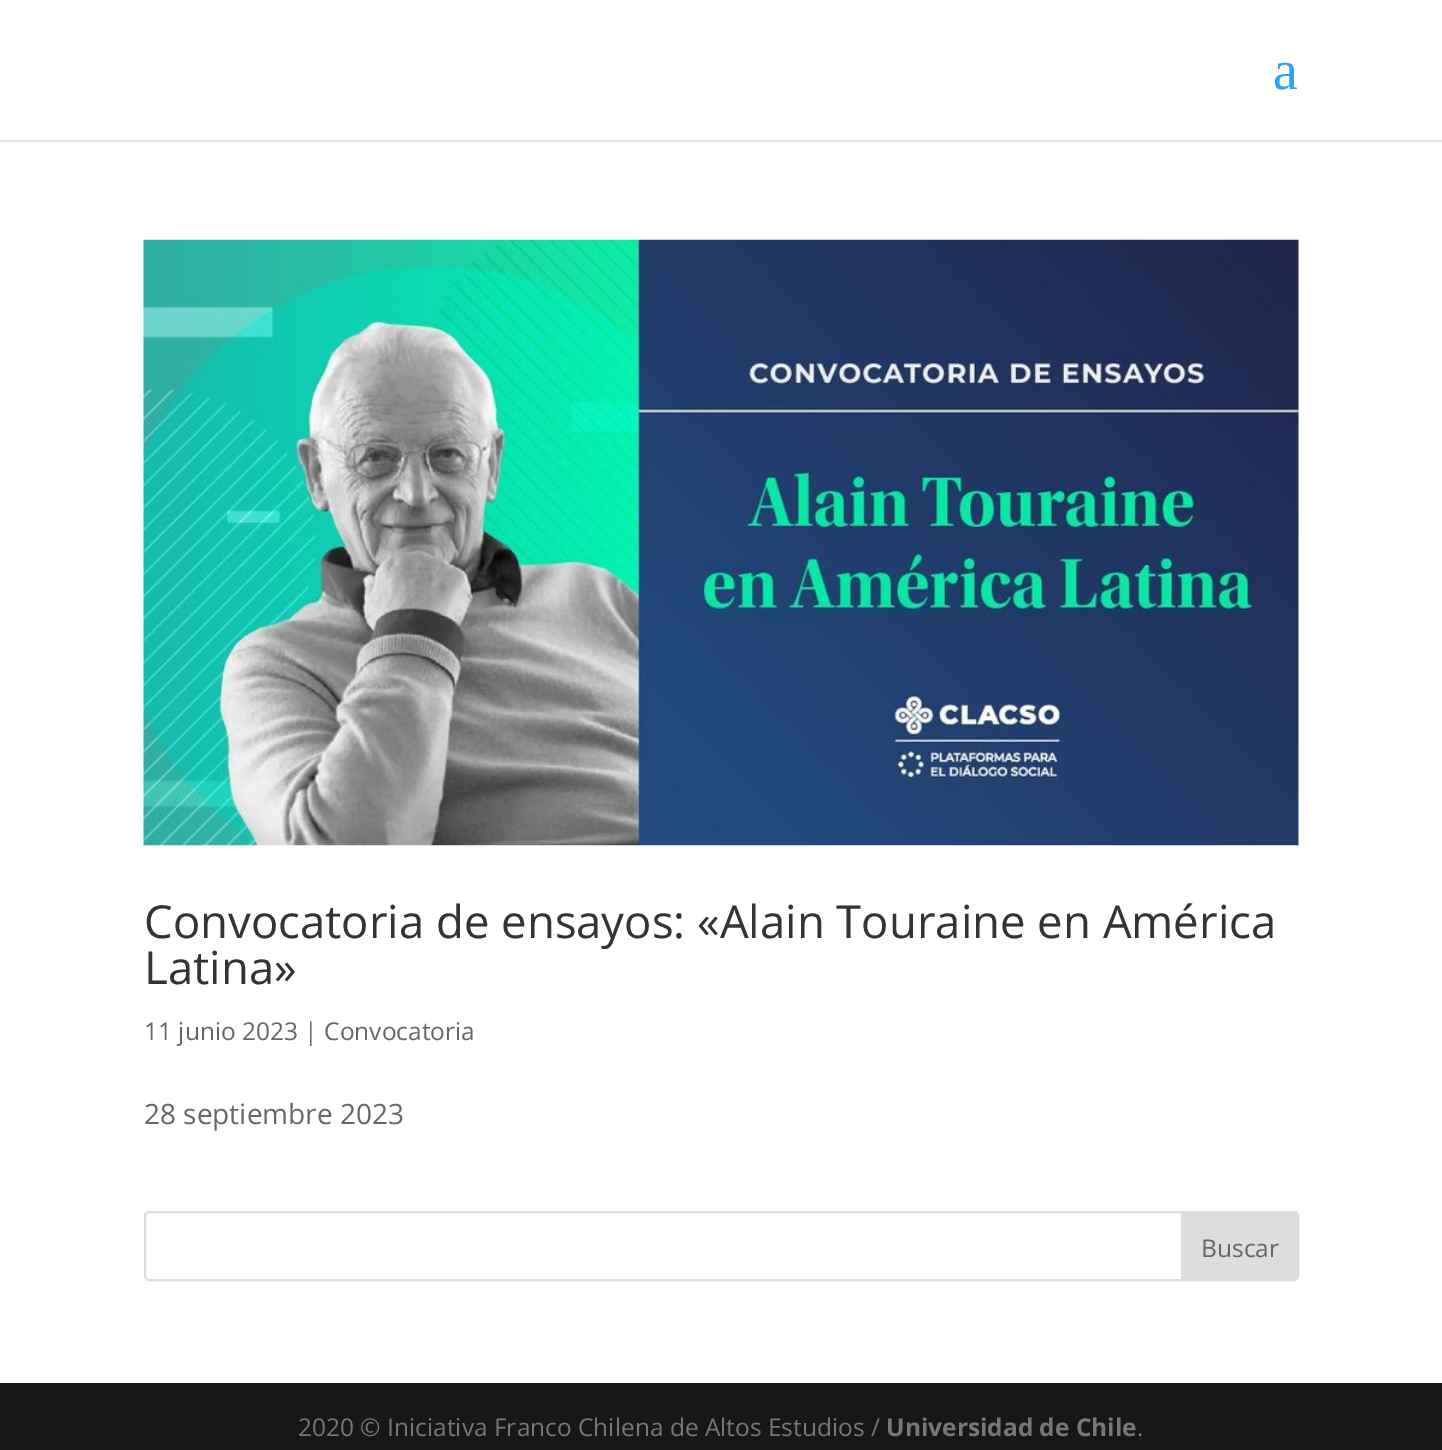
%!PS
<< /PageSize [1442 1450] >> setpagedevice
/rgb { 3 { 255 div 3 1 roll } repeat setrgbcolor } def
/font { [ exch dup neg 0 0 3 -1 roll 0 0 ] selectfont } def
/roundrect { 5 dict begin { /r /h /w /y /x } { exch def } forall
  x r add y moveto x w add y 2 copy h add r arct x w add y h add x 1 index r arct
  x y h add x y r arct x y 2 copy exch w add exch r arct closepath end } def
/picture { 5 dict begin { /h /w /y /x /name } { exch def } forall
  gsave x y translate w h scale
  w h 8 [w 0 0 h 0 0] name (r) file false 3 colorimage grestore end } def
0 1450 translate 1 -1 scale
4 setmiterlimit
255 255 255 rgb
0 0 1442 1450 rectfill
230 230 230 rgb
0 140 1442 2 rectfill
(img/1.rgb) 143 239 1156 607 picture
221 221 221 rgb
2 setlinewidth
145 1212 1153 68 4 roundrect stroke
1182 1212 moveto 1294 1212 lineto 1296 1212 1298 1214 1298 1216 curveto 1298 1276 lineto 1298 1278 1296 1280 1294 1280 curveto 1182 1280 lineto closepath gsave fill grestore
stroke
23 23 23 rgb
0 1383 1442 67 rectfill
/LiberationSerif-Regular 56 font
46 163 242 rgb
1273 89 moveto (a) show
/OpenSans-Regular 45.5 font
51 51 51 rgb
144 938 moveto (Convocatoria de ensayos: «Alain Touraine en América) show
144 984 moveto (Latina») show
/OpenSans-Regular 24.5 font
102 102 102 rgb
144 1040 moveto (11 junio 2023 | Convocatoria) show
/OpenSans-Regular 28 font
144 1124 moveto (28 septiembre 2023) show
/OpenSans-Regular 24.5 font
1201 1257 moveto (Buscar) show
119 119 119 rgb
298 1436 moveto (2020 © Iniciativa Franco Chilena de Altos Estudios /) show
/OpenSans-Bold 24.5 font
886 1436 moveto (Universidad de Chile) show
/OpenSans-Regular 24.5 font
1137 1436 moveto (.) show
showpage
